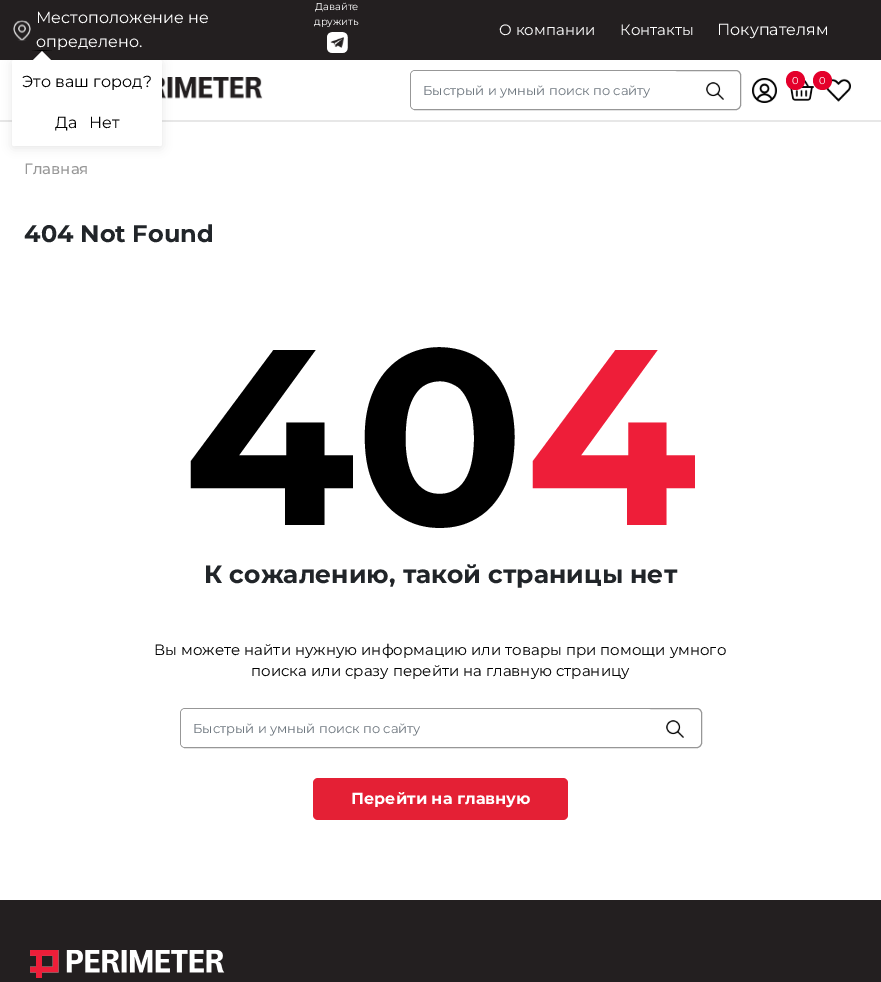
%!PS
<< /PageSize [881 982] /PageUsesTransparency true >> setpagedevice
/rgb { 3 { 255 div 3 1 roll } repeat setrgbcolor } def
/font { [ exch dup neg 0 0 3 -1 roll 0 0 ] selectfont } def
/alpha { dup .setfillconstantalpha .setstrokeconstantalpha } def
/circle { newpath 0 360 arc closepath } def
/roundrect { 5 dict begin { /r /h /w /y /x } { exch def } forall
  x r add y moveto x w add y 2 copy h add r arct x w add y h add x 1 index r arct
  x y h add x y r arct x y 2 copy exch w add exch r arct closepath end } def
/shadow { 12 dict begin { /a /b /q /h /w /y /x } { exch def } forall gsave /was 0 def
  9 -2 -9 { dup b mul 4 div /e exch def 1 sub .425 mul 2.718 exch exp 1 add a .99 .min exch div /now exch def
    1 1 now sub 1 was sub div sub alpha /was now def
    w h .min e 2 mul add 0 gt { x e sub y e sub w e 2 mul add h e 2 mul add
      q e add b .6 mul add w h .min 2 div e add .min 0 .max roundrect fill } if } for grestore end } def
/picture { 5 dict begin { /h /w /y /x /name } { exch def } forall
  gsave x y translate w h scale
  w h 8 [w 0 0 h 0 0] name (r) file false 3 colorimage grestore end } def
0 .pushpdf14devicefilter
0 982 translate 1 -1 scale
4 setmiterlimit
255 255 255 rgb
0 0 881 982 rectfill
35 31 32 rgb
0 0 881 60 rectfill
(img/1.rgb) 13 20 18 21 picture
(img/2.rgb) 327 32 21 21 picture
(img/3.rgb) 162 77 101 22 picture
231 231 231 rgb
0 120 881 2 rectfill
0 0 0 rgb
12 62 150 86 2 5 0.1 shadow
255 255 255 rgb
12 60 150 86 2 roundrect fill
52 61 moveto 32 61 lineto 42 51 lineto closepath fill
(img/4.rgb) 752 78 25 25 picture
(img/5.rgb) 789 80 25 21 picture
228 0 43 rgb
795.5 80.5 9.5 circle fill
(img/6.rgb) 826 78 25 24 picture
822.5 80.5 9.5 circle fill
151 151 151 rgb
410.5 70.5 330 39 4.5 roundrect stroke
255 255 255 rgb
411 71 267 38 4 roundrect fill
(img/7.rgb) 706 82 18 18 picture
151 151 151 rgb
180.5 708.5 521 39 4.5 roundrect stroke
255 255 255 rgb
181 709 471 38 4 roundrect fill
(img/7.rgb) 666 720 18 18 picture
228 32 53 rgb
313 778 255 42 5 roundrect fill
35 31 32 rgb
0 900 881 82 rectfill
(img/8.rgb) 30 950 195 28 picture
/Montserrat-Regular 16 font
255 255 255 rgb
36 23 moveto (Местоположение не) show
36 47 moveto (определено.) show
/Montserrat-Regular 10 font
315 10 moveto (Давайте) show
314 25 moveto (дружить) show
0 0 0 rgb
32 50 moveto 52 50 lineto 42 51 lineto closepath fill
/Montserrat-Regular 16 font
[
  [(Это ваш город?) 22 87]
  [(Да) 55 128]
  [(Нет) 89 128]
] { aload pop moveto show } forall
/Montserrat-Regular 15 font
255 255 255 rgb
499 35 moveto (О компании) show
620 35 moveto (Контакты) show
/Montserrat-Regular 16 font
717 35 moveto (Покупателям) show
/Montserrat-Regular 10 font
792 84 moveto (0) show
819 84 moveto (0) show
/Montserrat-Regular 13 font
108 117 125 rgb
423 95 moveto (Быстрый и умный поиск по сайту) show
/Montserrat-Medium 15 font
151 151 151 rgb
24 174 moveto (Главная) show
/Montserrat-Bold 24 font
33 37 41 rgb
24 242 moveto (404 Not Found) show
/Montserrat-Bold 250 font
0 0 0 rgb
183 525 moveto (40) show
238 30 57 rgb
525 525 moveto (4) show
/Montserrat-Bold 25 font
33 37 41 rgb
204 583 moveto (К сожалению, такой страницы нет) show
/Montserrat-Regular 15 font
0 0 0 rgb
154 655 moveto (Вы можете найти нужную информацию или товары при помощи умного) show
251 676 moveto (поиска или сразу перейти на главную страницу) show
/Montserrat-Regular 13 font
108 117 125 rgb
193 733 moveto (Быстрый и умный поиск по сайту) show
/Montserrat-Bold 16 font
255 255 255 rgb
351 804 moveto (Перейти на главную) show
.poppdf14devicefilter showpage
